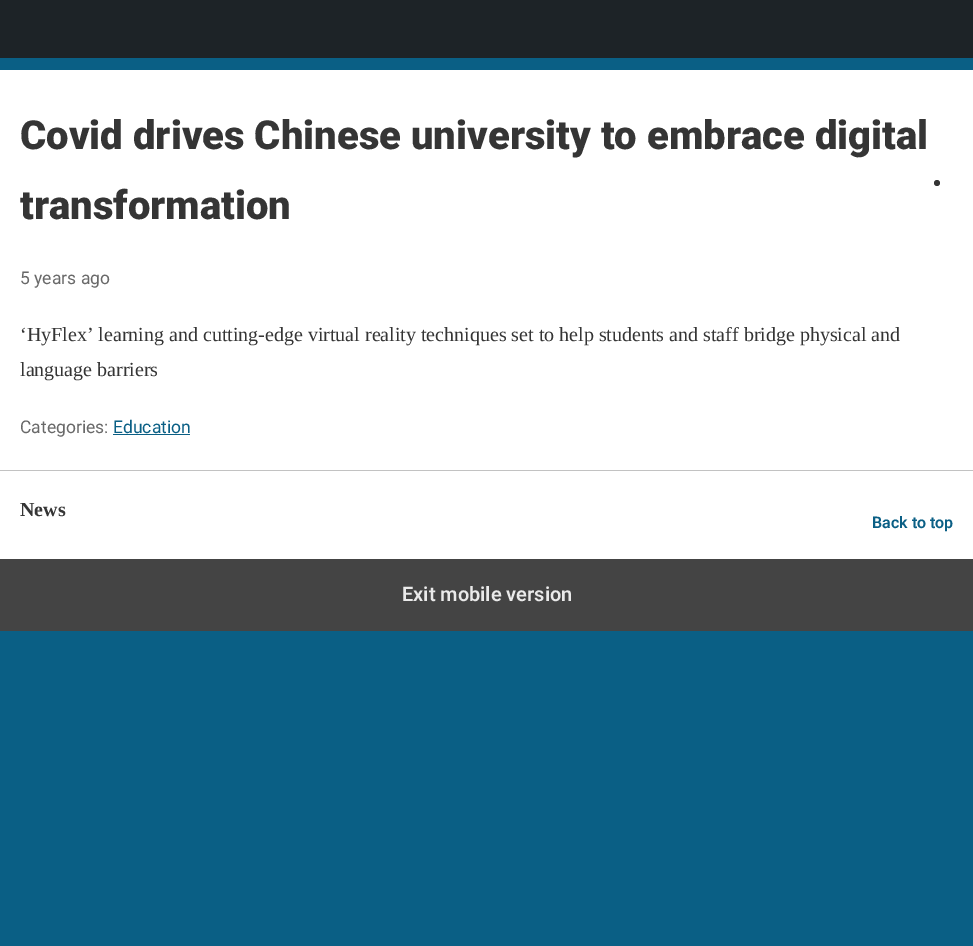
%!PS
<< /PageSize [973 946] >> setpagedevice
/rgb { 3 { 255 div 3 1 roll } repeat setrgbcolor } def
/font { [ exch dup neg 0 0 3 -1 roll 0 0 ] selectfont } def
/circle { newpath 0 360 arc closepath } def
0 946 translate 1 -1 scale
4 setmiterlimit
10 95 133 rgb
0 0 973 946 rectfill
255 255 255 rgb
0 70 973 489 rectfill
29 35 39 rgb
0 0 973 58 rectfill
53 53 53 rgb
937 183 3 circle fill
[
  [113 434 77 1 10 95 133]
  [0 470 973 1 194 194 194]
  [0 559 973 72 68 68 68]
] { aload pop rgb rectfill } forall
/Roboto-Black 40 font
53 53 53 rgb
20 149 moveto (Covid drives Chinese university to embrace digital) show
20 219 moveto (transformation) show
/Roboto-Regular 17.5 font
105 105 105 rgb
20 284 moveto (5 years ago) show
/LiberationSerif-Regular 20 font
53 53 53 rgb
20 341 moveto (‘HyFlex’ learning and cutting-edge virtual reality techniques set to help students and staff bridge physical and) show
20 376 moveto (language barriers) show
/Roboto-Regular 17.5 font
105 105 105 rgb
20 433 moveto (Categories:) show
10 95 133 rgb
113 433 moveto (Education) show
/LiberationSerif-Bold 20 font
53 53 53 rgb
20 516 moveto (News) show
/Roboto-SemiBold 16 font
10 95 133 rgb
872 528 moveto (Back to top) show
/Roboto-SemiBold 20 font
234 234 234 rgb
402 601 moveto (Exit mobile version) show
showpage
